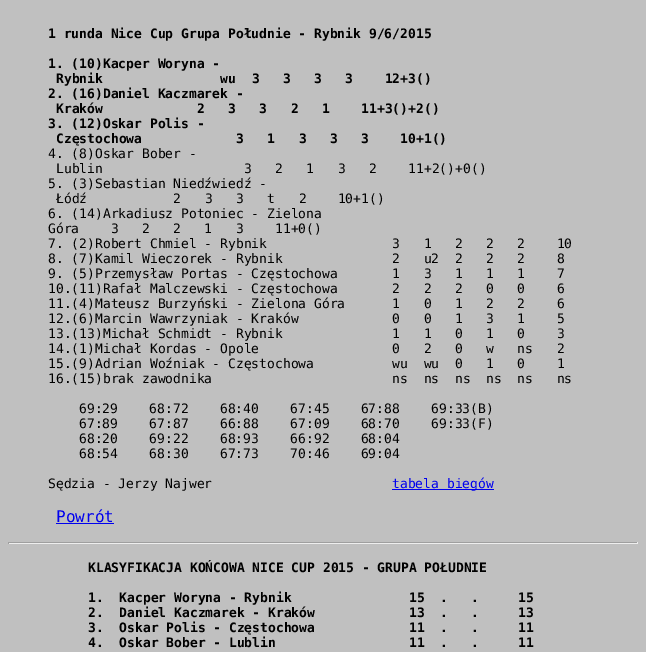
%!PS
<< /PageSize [646 652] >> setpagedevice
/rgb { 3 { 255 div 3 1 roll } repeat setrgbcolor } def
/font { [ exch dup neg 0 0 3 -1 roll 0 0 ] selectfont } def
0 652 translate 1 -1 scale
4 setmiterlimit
192 192 192 rgb
0 0 646 652 rectfill
[
  [392 489 102 1 0 0 238]
  [56 523 58 1 0 0 238]
  [8 542 630 1 159 159 159]
  [637 542 1 2 238 238 238]
  [8 543 630 1 238 238 238]
  [8 542 1 2 159 159 159]
] { aload pop rgb rectfill } forall
/DejaVuSansMono-Bold 13 font
0 0 0 rgb
[
  [(1 runda Nice Cup Grupa Południe - Rybnik 9/6/2015) 48 38]
  [(1. \(10\)Kacper Woryna -) 48 68]
  [(Rybnik               wu  3   3   3   3    12+3\(\)) 56 83]
  [(2. \(16\)Daniel Kaczmarek -) 48 98]
  [(Kraków            2   3   3   2   1    11+3\(\)+2\(\)) 56 113]
  [(3. \(12\)Oskar Polis -) 48 128]
  [(Częstochowa            3   1   3   3   3    10+1\(\)) 56 143]
] { aload pop moveto show } forall
/DejaVuSansMono-Regular 13 font
[
  [(4. \(8\)Oskar Bober -) 48 158]
  [(Lublin                  3   2   1   3   2    11+2\(\)+0\(\)) 56 173]
  [(5. \(3\)Sebastian Niedźwiedź -) 48 188]
  [(Łódź           2   3   3   t   2    10+1\(\)) 56 203]
  [(6. \(14\)Arkadiusz Potoniec - Zielona) 48 218]
  [(Góra    3   2   2   1   3    11+0\(\)) 48 233]
  [(7. \(2\)Robert Chmiel - Rybnik                3   1   2   2   2    10) 48 248]
  [(8. \(7\)Kamil Wieczorek - Rybnik              2   u2  2   2   2    8) 48 263]
  [(9. \(5\)Przemysław Portas - Częstochowa       1   3   1   1   1    7) 48 278]
  [(10.\(11\)Rafał Malczewski - Częstochowa       2   2   2   0   0    6) 48 293]
  [(11.\(4\)Mateusz Burzyński - Zielona Góra      1   0   1   2   2    6) 48 308]
  [(12.\(6\)Marcin Wawrzyniak - Kraków            0   0   1   3   1    5) 48 323]
  [(13.\(13\)Michał Schmidt - Rybnik              1   1   0   1   0    3) 48 338]
  [(14.\(1\)Michał Kordas - Opole                 0   2   0   w   ns   2) 48 353]
  [(15.\(9\)Adrian Woźniak - Częstochowa          wu  wu  0   1   0    1) 48 368]
  [(16.\(15\)brak zawodnika                       ns  ns  ns  ns  ns   ns) 48 383]
  [(69:29    68:72    68:40    67:45    67:88    69:33\(B\)) 79 413]
  [(67:89    67:87    66:88    67:09    68:70    69:33\(F\)) 79 428]
  [(68:20    69:22    68:93    66:92    68:04) 79 443]
  [(68:54    68:30    67:73    70:46    69:04) 79 458]
  [(Sędzia - Jerzy Najwer) 48 488]
] { aload pop moveto show } forall
0 0 238 rgb
392 488 moveto (tabela biegów) show
/DejaVuSansMono-Regular 16 font
56 522 moveto (Powrót) show
/DejaVuSansMono-Bold 13 font
0 0 0 rgb
[
  [(KLASYFIKACJA KOŃCOWA NICE CUP 2015 - GRUPA POŁUDNIE) 88 572]
  [(1.  Kacper Woryna - Rybnik               15  .   .     15) 88 602]
  [(2.  Daniel Kaczmarek - Kraków            13  .   .     13) 88 617]
  [(3.  Oskar Polis - Częstochowa            11  .   .     11) 88 632]
  [(4.  Oskar Bober - Lublin                 11  .   .     11) 88 647]
] { aload pop moveto show } forall
showpage
